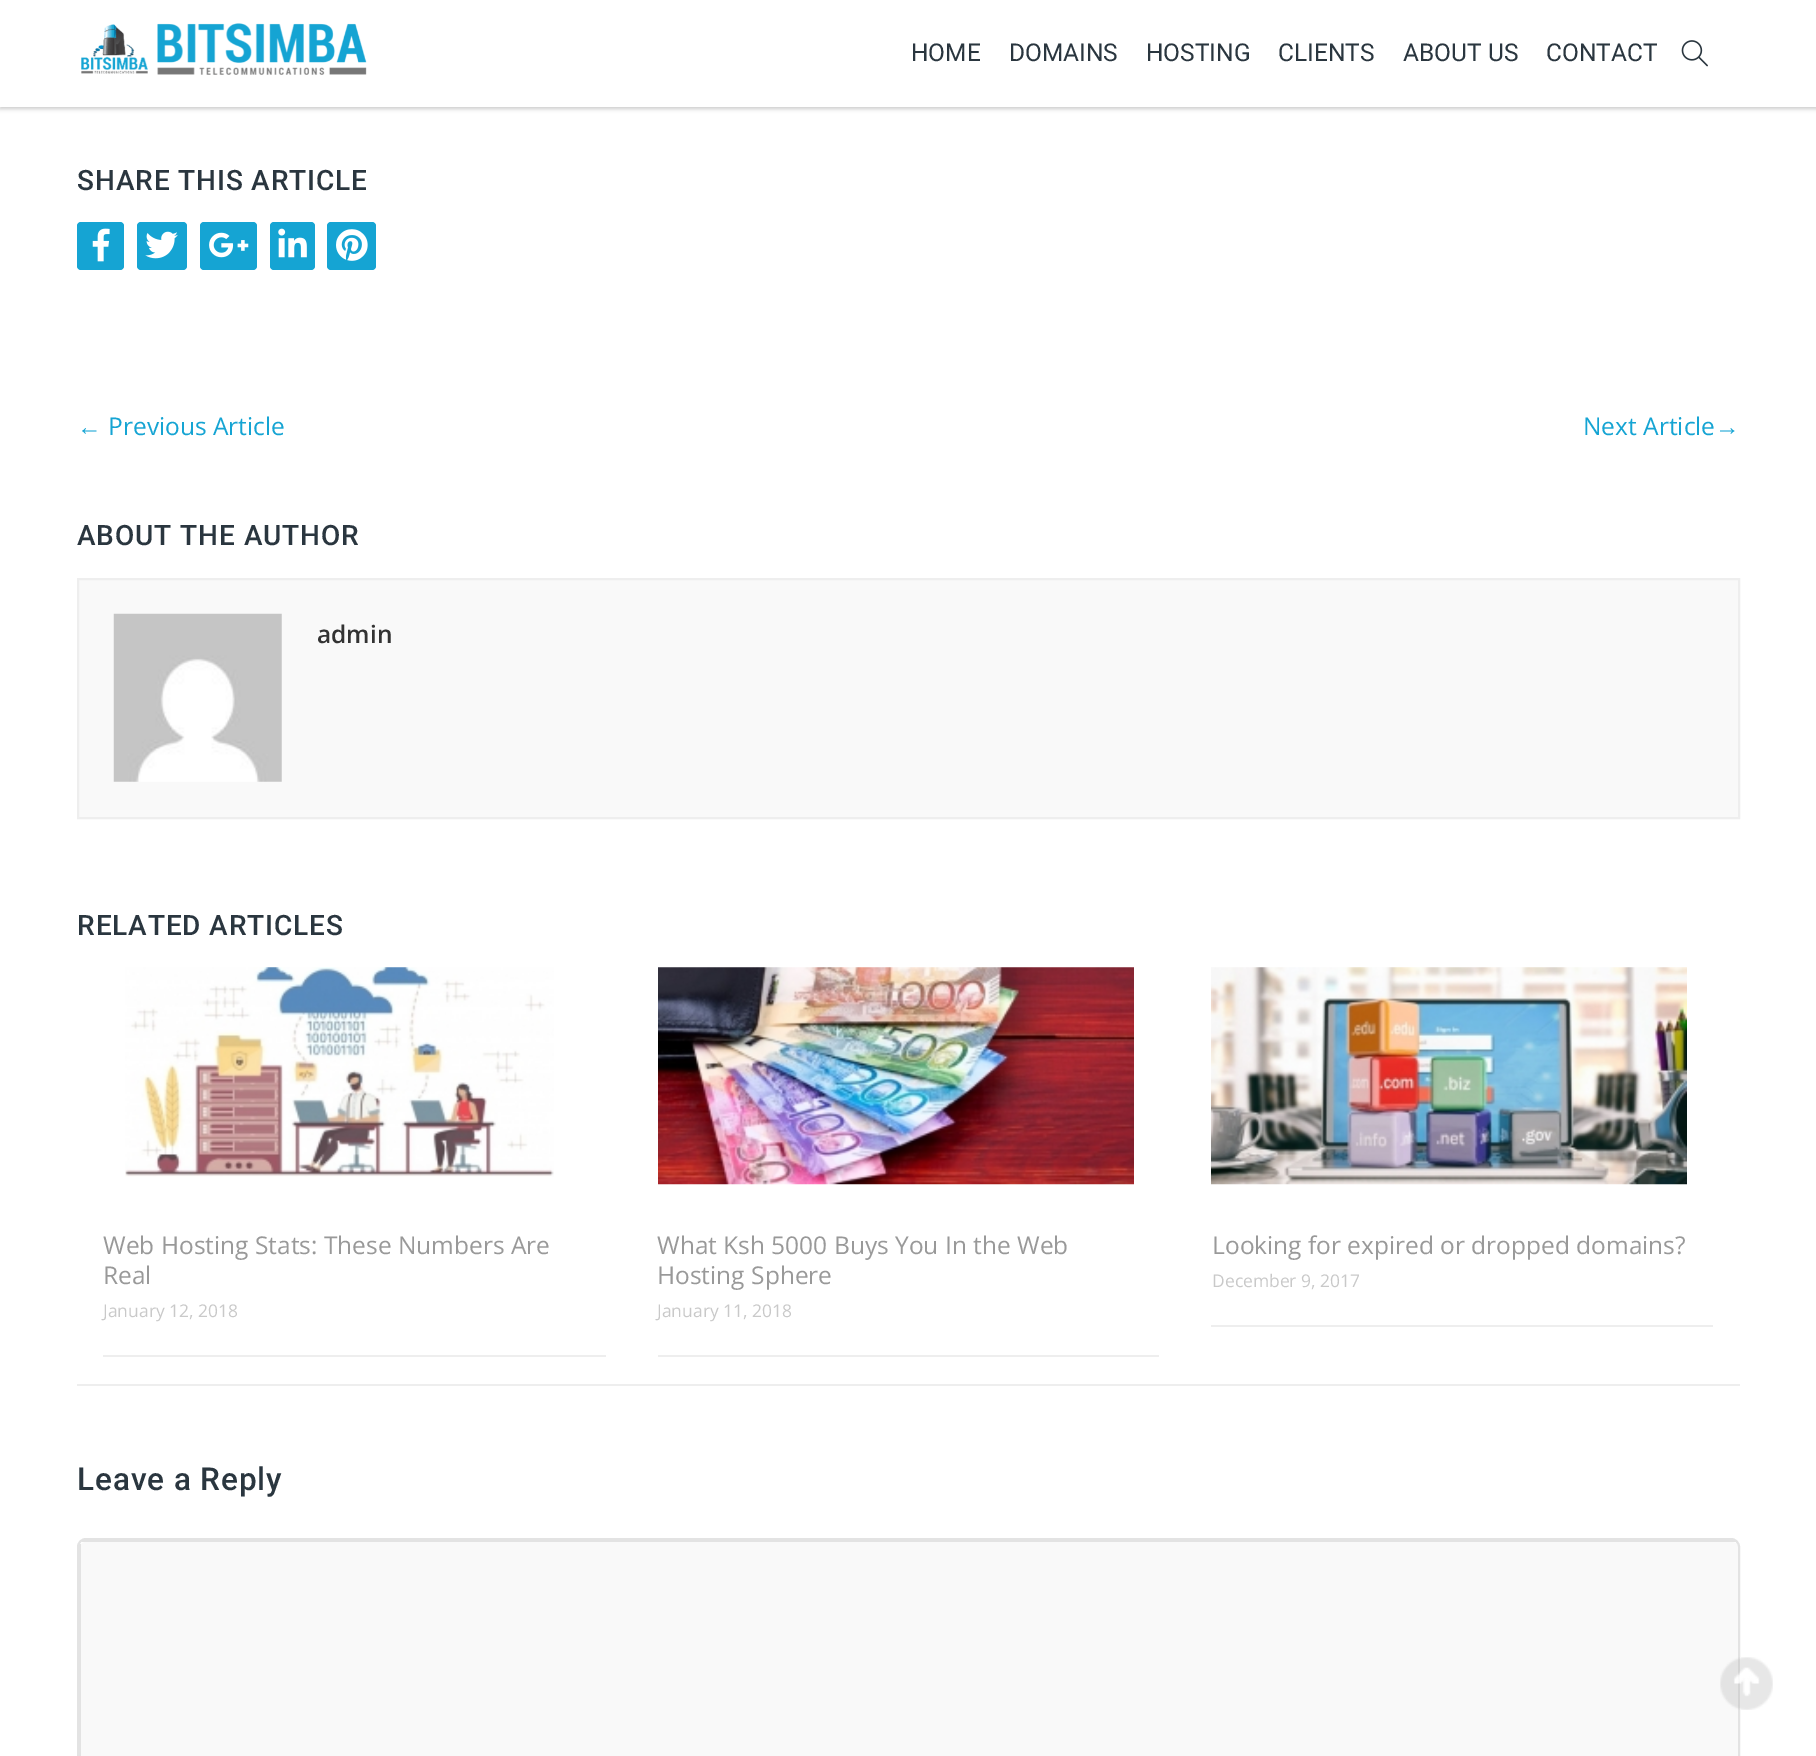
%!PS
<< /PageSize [1816 1756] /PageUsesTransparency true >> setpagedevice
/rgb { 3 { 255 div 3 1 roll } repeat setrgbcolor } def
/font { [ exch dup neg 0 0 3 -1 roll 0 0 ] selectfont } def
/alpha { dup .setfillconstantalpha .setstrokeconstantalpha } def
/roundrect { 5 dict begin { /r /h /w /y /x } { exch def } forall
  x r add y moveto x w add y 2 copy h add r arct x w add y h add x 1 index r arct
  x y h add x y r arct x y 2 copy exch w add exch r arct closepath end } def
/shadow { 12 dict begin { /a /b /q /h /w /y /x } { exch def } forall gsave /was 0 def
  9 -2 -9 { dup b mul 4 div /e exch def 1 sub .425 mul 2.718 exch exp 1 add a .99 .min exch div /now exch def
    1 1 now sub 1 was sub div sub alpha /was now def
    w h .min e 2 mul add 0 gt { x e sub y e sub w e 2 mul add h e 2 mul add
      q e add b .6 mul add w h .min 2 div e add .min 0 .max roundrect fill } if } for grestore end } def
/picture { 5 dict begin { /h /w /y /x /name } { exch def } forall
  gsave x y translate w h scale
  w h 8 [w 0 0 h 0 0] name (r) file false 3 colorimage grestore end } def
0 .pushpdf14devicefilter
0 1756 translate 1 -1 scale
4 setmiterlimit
255 255 255 rgb
0 0 1816 1756 rectfill
(img/3.rgb) 77 55 1663 11 picture
gsave
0 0 moveto 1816 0 lineto 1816 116 lineto 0 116 lineto closepath 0 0 moveto 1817 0 lineto 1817 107 lineto 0 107 lineto closepath eoclip newpath
0 0 0 rgb
0 2 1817 107 0 2 0.2 shadow
grestore
0.99 alpha
0 55 1816 52 rectfill
1 alpha
(img/1.rgb) 81 23 286 52 picture
(img/2.rgb) 1681 40 27 27 picture
21 164 211 rgb
77 222 47 48 4 roundrect fill
(img/4.rgb) 92 228 18 34 picture
137 222 50 48 4 roundrect fill
(img/5.rgb) 145 231 33 28 picture
200 222 57 48 4 roundrect fill
(img/6.rgb) 209 232 40 26 picture
270 222 45 48 4 roundrect fill
(img/7.rgb) 278 228 29 30 picture
327 222 49 48 4 roundrect fill
(img/8.rgb) 336 229 32 32 picture
249 249 249 rgb
78 579 moveto 1739 579 lineto 1739 818 lineto 78 818 lineto closepath gsave fill grestore
238 238 238 rgb
2 setlinewidth
stroke
(img/9.rgb) 113 613 169 169 picture
103 1355 503 2 rectfill
(img/10.rgb) 125 967 429 210 picture
658 1355 501 2 rectfill
(img/11.rgb) 658 967 476 218 picture
1211 1325 502 2 rectfill
(img/12.rgb) 1211 967 476 218 picture
77 1384 1663 2 rectfill
249 249 249 rgb
86 1542 moveto 1731 1542 lineto 1735 1542 1738 1544 1738 1547 curveto 1738 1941 lineto 1738 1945 1735 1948 1731 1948 curveto 86 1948 lineto 83 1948 80 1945 80 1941 curveto 80 1547 lineto 80 1544 83 1542 86 1542 curveto closepath fill
227 227 227 rgb
78 1539 1661 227 8 roundrect stroke
82 1540 1654 2 rectfill
79 1544 2 212 rectfill
(img/13.rgb) 1720 1657 53 53 picture
/Roboto-Regular 24.5 font
42 54 63 rgb
[
  [(HOME) 911 61]
  [(DOMAINS) 1009 61]
  [(HOSTING) 1146 61]
  [(CLIENTS) 1278 61]
  [(ABOUT US) 1403 61]
  [(CONTACT) 1546 61]
] { aload pop moveto show } forall
/Roboto-Medium 28 font
77 190 moveto 0.9 0 (SHARE THIS ARTICLE) ashow
/LiberationSans-Regular 24.5 font
21 164 211 rgb
77 435 moveto (←) show
/OpenSans-Regular 24.5 font
108 435 moveto (Previous Article) show
1583 435 moveto (Next Article) show
/LiberationSans-Regular 24.5 font
1715 435 moveto (→) show
/Roboto-Medium 28 font
42 54 63 rgb
77 545 moveto 0.9 0 (ABOUT THE AUTHOR) ashow
/OpenSans-SemiBold 24.5 font
51 51 51 rgb
317 643 moveto (admin) show
/Roboto-Medium 28 font
42 54 63 rgb
77 935 moveto 0.9 0 (RELATED ARTICLES) ashow
/OpenSans-Regular 24.5 font
153 153 153 rgb
103 1254 moveto (Web Hosting Stats: These Numbers Are) show
103 1284 moveto (Real) show
/OpenSans-Regular 17.5 font
201 201 201 rgb
103 1317 moveto (January 12, 2018) show
/OpenSans-Regular 24.5 font
153 153 153 rgb
657 1254 moveto (What Ksh 5000 Buys You In the Web) show
657 1284 moveto (Hosting Sphere) show
/OpenSans-Regular 17.5 font
201 201 201 rgb
657 1317 moveto (January 11, 2018) show
/OpenSans-Regular 24.5 font
153 153 153 rgb
1212 1254 moveto (Looking for expired or dropped domains?) show
/OpenSans-Regular 17.5 font
201 201 201 rgb
1212 1287 moveto (December 9, 2017) show
/Roboto-Medium 31.5 font
42 54 63 rgb
77 1490 moveto 0.9 0 (Leave a Reply) ashow
.poppdf14devicefilter showpage
